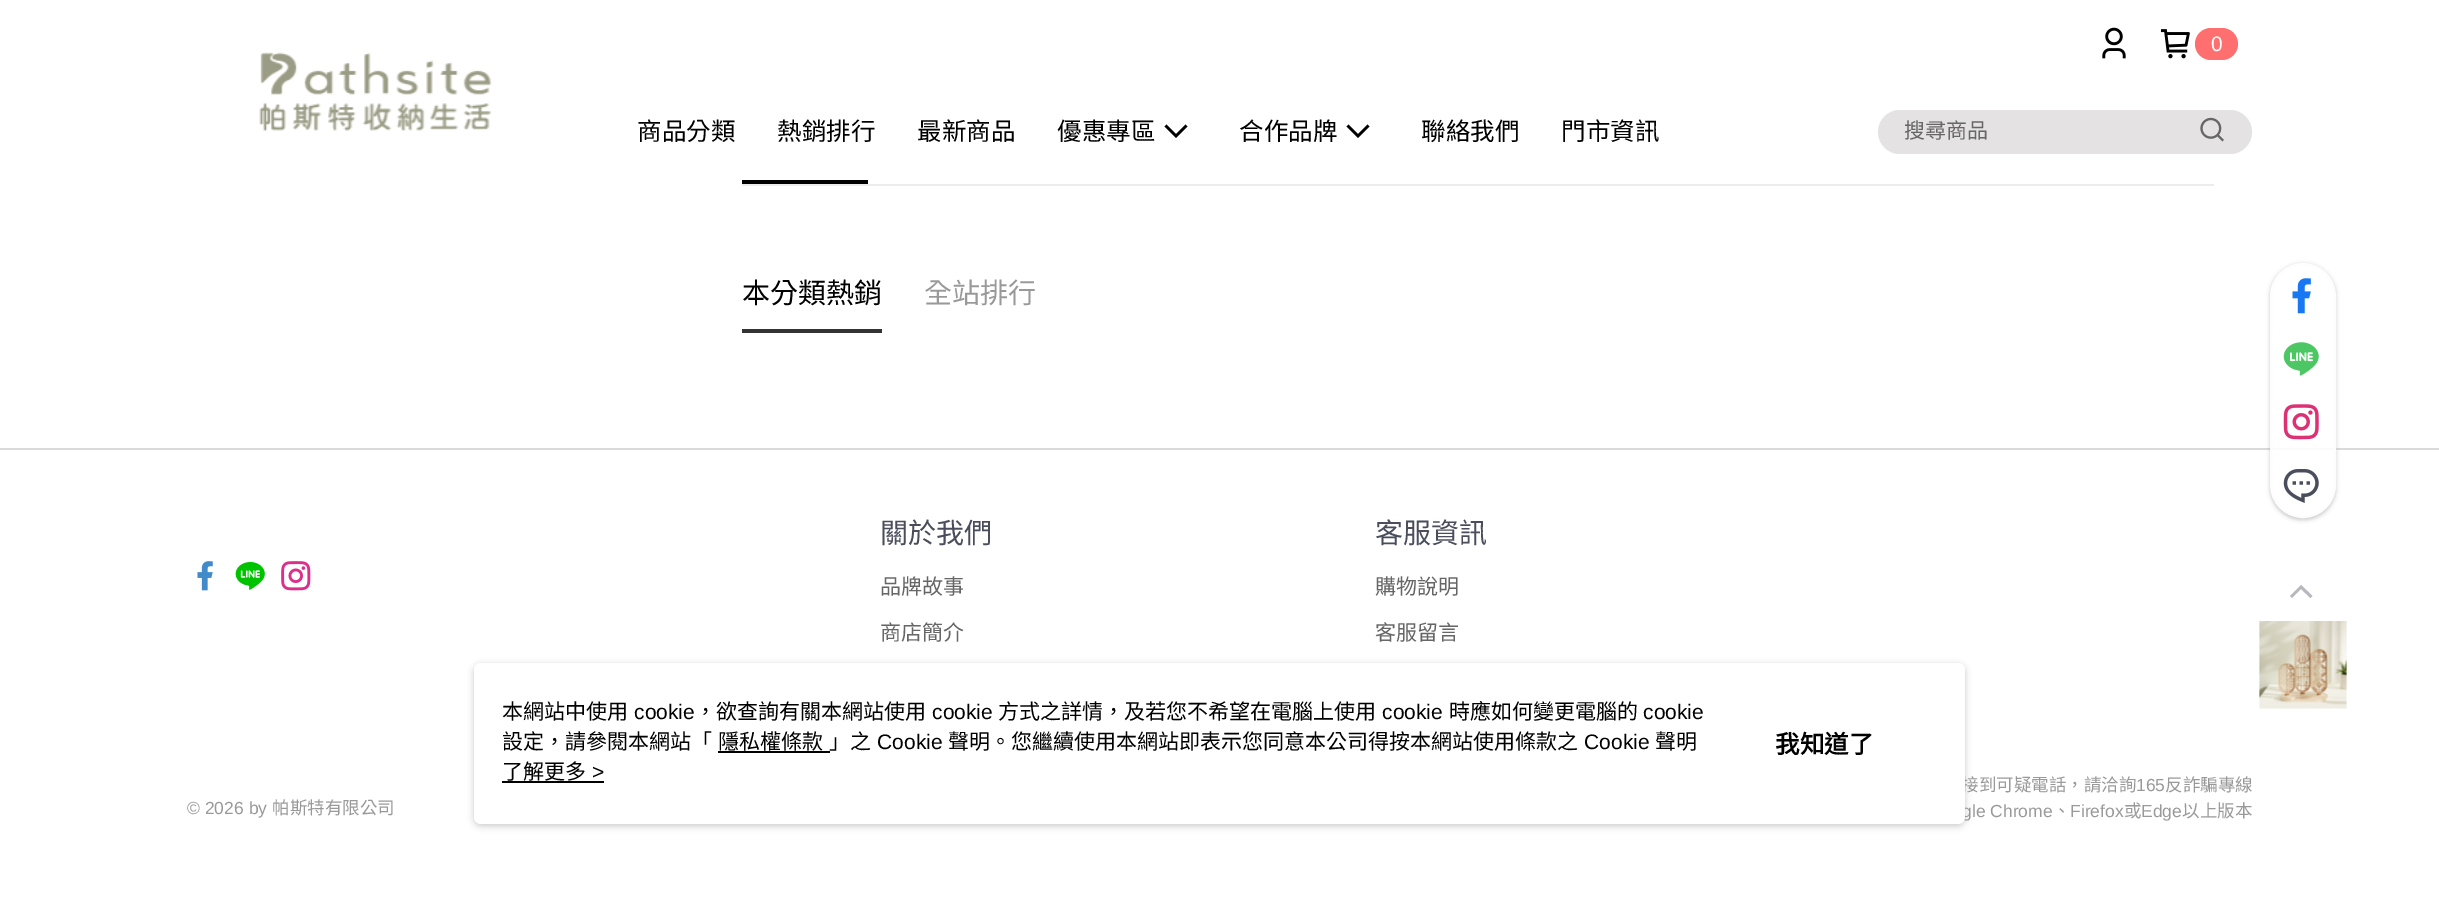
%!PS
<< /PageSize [2439 904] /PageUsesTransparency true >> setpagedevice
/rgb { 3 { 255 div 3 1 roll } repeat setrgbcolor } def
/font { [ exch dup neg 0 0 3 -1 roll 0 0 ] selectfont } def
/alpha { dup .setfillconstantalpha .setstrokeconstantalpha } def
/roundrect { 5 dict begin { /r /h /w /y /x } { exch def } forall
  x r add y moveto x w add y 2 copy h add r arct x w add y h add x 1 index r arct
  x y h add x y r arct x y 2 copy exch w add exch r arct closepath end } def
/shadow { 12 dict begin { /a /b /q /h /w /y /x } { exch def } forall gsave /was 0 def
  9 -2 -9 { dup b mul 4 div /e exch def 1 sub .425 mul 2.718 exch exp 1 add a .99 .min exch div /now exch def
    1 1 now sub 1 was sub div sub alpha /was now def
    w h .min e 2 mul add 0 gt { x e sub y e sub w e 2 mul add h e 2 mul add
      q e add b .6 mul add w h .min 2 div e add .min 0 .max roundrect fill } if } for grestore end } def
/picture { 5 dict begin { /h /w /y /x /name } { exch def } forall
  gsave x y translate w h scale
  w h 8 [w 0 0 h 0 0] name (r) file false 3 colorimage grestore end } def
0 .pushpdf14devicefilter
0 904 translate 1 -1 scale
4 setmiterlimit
255 255 255 rgb
0 0 2439 904 rectfill
(img/1.rgb) 259 52 233 79 picture
(img/2.rgb) 2102 27 24 32 picture
(img/3.rgb) 2160 29 30 30 picture
255 111 111 rgb
2195 28 43 32 16 roundrect fill
0 0 0 rgb
1166.5 124.5 moveto 1164.5 126.5 lineto 1176 138 lineto 1187.5 126.5 lineto 1185.5 124.5 lineto 1176 134 lineto closepath fill
1348.5 124.5 moveto 1346.5 126.5 lineto 1358 138 lineto 1369.5 126.5 lineto 1367.5 124.5 lineto 1358 134 lineto closepath fill
228 226 226 rgb
1878 110 374 44 22 roundrect fill
(img/4.rgb) 2200 117 24 25 picture
[
  [742 184 1472 2 236 236 236]
  [742 180 126 4 0 0 0]
  [742 329 140 4 51 51 51]
  [0 448 2439 2 218 218 218]
] { aload pop rgb rectfill } forall
gsave
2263 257 moveto 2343 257 lineto 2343 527 lineto 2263 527 lineto closepath 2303 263 moveto 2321 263 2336 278 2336 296 curveto 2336 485 lineto 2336 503 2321 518 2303 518 curveto 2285 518 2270 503 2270 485 curveto 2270 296 lineto 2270 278 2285 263 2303 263 curveto closepath eoclip newpath
0 0 0 rgb
2270 264 66 256 33 2 0.2 shadow
grestore
0.9 alpha
255 255 255 rgb
2271 264 64 253 32 roundrect fill
1 alpha
253 253 253 rgb
2 setlinewidth
2271 264 64 253 32 roundrect stroke
(img/5.rgb) 2292 278 19 36 picture
(img/6.rgb) 2283 342 36 34 picture
(img/7.rgb) 2283 404 36 36 picture
(img/8.rgb) 2283 469 36 34 picture
183 184 190 rgb
2310.5 598 moveto 2312.5 596 lineto 2301 585 lineto 2290 596 lineto 2292 598 lineto 2301 589 lineto closepath fill
(img/9.rgb) 2259 621 88 88 picture
(img/10.rgb) 197 561 16 30 picture
(img/11.rgb) 235 562 30 28 picture
(img/12.rgb) 281 561 30 30 picture
151 151 151 rgb
474 665 1491 161 7 3.5 0.5 shadow
/LiberationSans-Regular 21 font
255 255 255 rgb
2211 51 moveto (0) show
/NotoSansCJKTC-Regular 24.5 font
0 0 0 rgb
[
  [(商品分類) 637 140]
  [(熱銷排行) 777 140]
  [(最新商品) 917 140]
  [(優惠專區) 1057 140]
  [(合作品牌) 1239 140]
  [(聯絡我們) 1421 140]
  [(門市資訊) 1561 140]
] { aload pop moveto show } forall
/NotoSansCJKTC-Regular 21 font
102 102 102 rgb
1904 138 moveto (搜尋商品) show
/NotoSansCJKTC-Regular 28 font
0 0 0 rgb
742 303 moveto (本分類熱銷) show
153 153 153 rgb
924 303 moveto (全站排行) show
74 78 92 rgb
880 543 moveto (關於我們) show
/NotoSansCJKTC-Regular 21 font
102 102 102 rgb
880 594 moveto (品牌故事) show
880 640 moveto (商店簡介) show
/NotoSansCJKTC-Regular 28 font
74 78 92 rgb
1375 543 moveto (客服資訊) show
/NotoSansCJKTC-Regular 21 font
102 102 102 rgb
1375 594 moveto (購物說明) show
1375 640 moveto (客服留言) show
/NotoSansCJKTC-Regular 17.5 font
153 153 153 rgb
1961 791 moveto (接到可疑電話，請洽詢) show
/LiberationSans-Regular 17.5 font
2136 791 moveto (165) show
/NotoSansCJKTC-Regular 17.5 font
2165 791 moveto (反詐騙專線) show
/LiberationSans-Regular 17.5 font
187 814 moveto (© 2026 by) show
/NotoSansCJKTC-Regular 17.5 font
272 814 moveto (帕斯特有限公司) show
/LiberationSans-Regular 17.5 font
1962 817 moveto (gle Chrome) show
/NotoSansCJKTC-Regular 17.5 font
2053 817 moveto (、) show
/LiberationSans-Regular 17.5 font
2070 817 moveto (Firefox) show
/NotoSansCJKTC-Regular 17.5 font
2124 817 moveto (或) show
/LiberationSans-Regular 17.5 font
2141 817 moveto (Edge) show
/NotoSansCJKTC-Regular 17.5 font
2182 817 moveto (以上版本) show
255 255 255 rgb
474 663 1491 161 7 roundrect fill
/NotoSansCJKTC-Regular 21 font
0 0 0 rgb
502 719 moveto (本網站中使用) show
/LiberationSans-Regular 21 font
634 719 moveto (cookie) show
/NotoSansCJKTC-Regular 21 font
695 719 moveto (，欲查詢有關本網站使用) show
/LiberationSans-Regular 21 font
932 719 moveto (cookie) show
/NotoSansCJKTC-Regular 21 font
998 719 moveto (方式之詳情，及若您不希望在電腦上使用) show
/LiberationSans-Regular 21 font
1382 719 moveto (cookie) show
/NotoSansCJKTC-Regular 21 font
1449 719 moveto (時應如何變更電腦的) show
/LiberationSans-Regular 21 font
1643 719 moveto (cookie) show
/NotoSansCJKTC-Regular 21 font
502 749 moveto (設定，請參閱本網站「) show
718 749 moveto (隱私權條款) show
718 751 112 2 rectfill
829 749 moveto (」之) show
/LiberationSans-Regular 21 font
877 749 moveto (Cookie) show
/NotoSansCJKTC-Regular 21 font
948 749 moveto (聲明。您繼續使用本網站即表示您同意本公司得按本網站使用條款之) show
/LiberationSans-Regular 21 font
1584 749 moveto (Cookie) show
/NotoSansCJKTC-Regular 21 font
1655 749 moveto (聲明) show
502 779 moveto (了解更多) show
/LiberationSans-Regular 21 font
592 779 moveto (>) show
502 781 102 2 rectfill
/NotoSansCJKTC-Bold 24.5 font
1775 753 moveto (我知道了) show
.poppdf14devicefilter showpage
